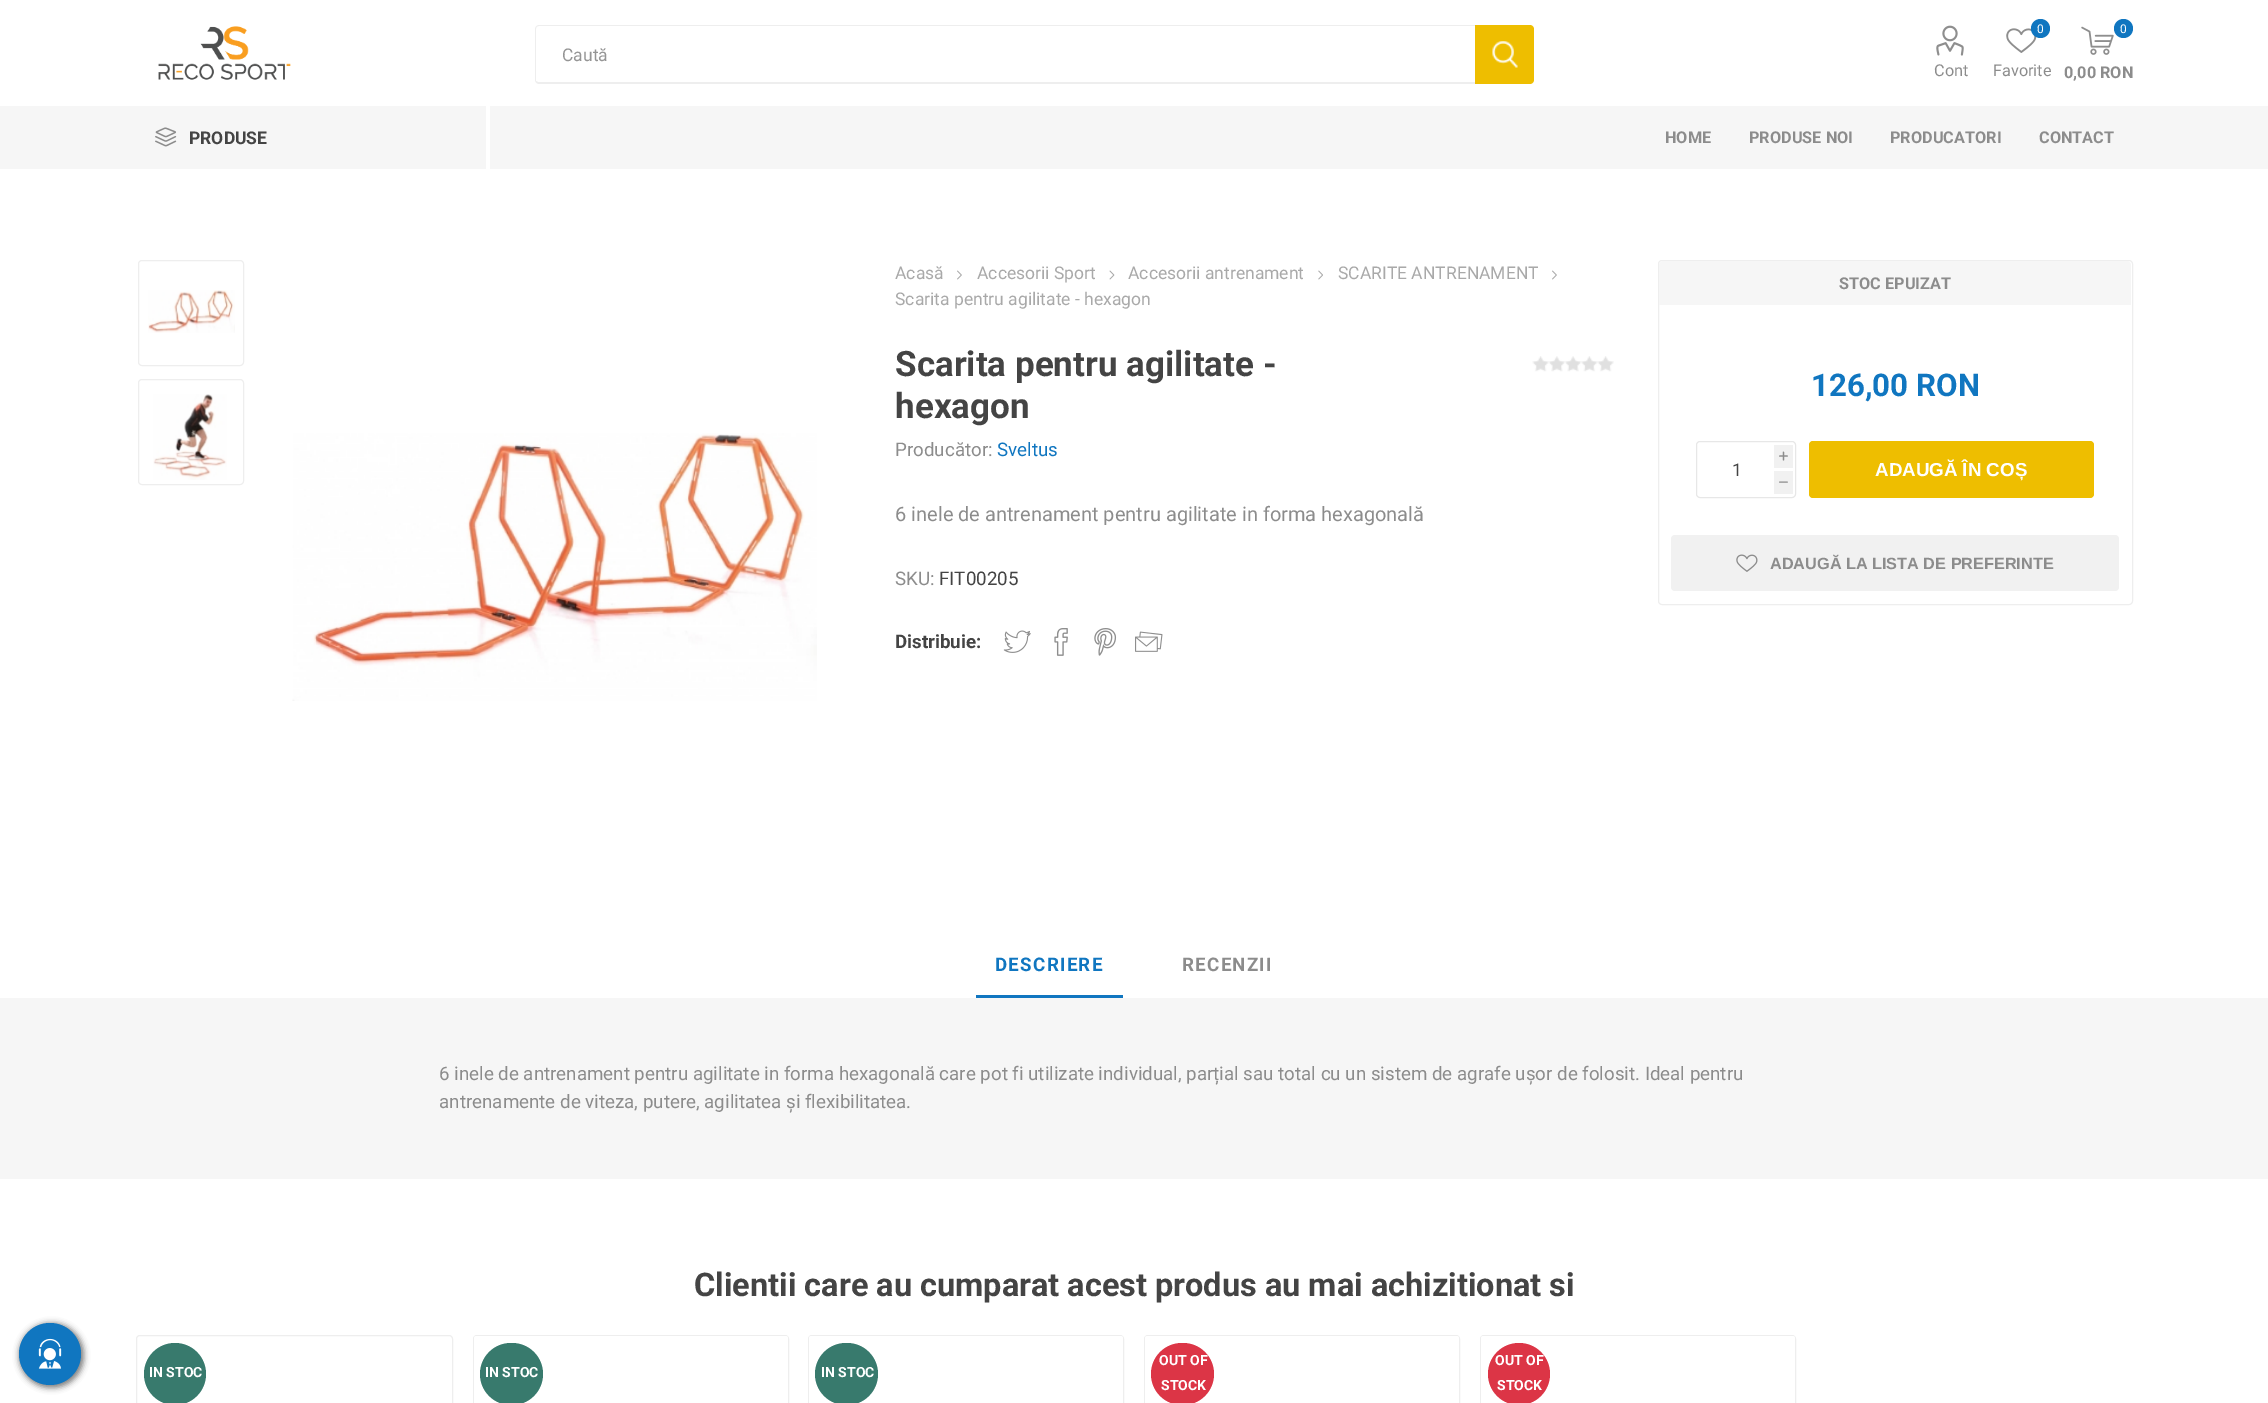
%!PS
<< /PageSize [2268 1403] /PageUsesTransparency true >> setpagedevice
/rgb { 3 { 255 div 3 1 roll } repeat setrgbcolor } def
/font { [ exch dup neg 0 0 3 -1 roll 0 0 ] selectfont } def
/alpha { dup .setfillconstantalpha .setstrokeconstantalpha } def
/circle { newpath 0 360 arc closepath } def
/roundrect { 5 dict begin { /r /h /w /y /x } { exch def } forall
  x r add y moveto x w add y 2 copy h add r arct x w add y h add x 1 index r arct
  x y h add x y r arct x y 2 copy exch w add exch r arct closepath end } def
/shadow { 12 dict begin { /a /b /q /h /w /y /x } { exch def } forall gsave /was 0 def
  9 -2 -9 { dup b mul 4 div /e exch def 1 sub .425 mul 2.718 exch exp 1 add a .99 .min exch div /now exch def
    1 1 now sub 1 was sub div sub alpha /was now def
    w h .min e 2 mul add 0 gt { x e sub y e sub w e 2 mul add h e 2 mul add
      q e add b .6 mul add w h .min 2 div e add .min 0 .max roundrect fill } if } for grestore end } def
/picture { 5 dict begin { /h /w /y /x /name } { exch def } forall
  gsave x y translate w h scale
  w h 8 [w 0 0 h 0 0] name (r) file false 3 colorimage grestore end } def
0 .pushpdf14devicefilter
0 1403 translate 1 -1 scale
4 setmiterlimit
255 255 255 rgb
0 0 2268 1403 rectfill
(img/1.rgb) 158 26 133 54 picture
238 238 238 rgb
539 25 moveto 1475 25 lineto 1475 84 lineto 539 84 lineto 537 84 535 82 535 80 curveto 535 29 lineto 535 27 537 25 539 25 curveto closepath 539 26 moveto 1475 26 lineto 1475 82 lineto 538 82 lineto 536 81 lineto 536 29 lineto 536 27 537 26 539 26 curveto closepath eofill
238 190 0 rgb
1475 25 moveto 1530 25 lineto 1532 25 1534 27 1534 29 curveto 1534 80 lineto 1534 82 1532 84 1530 84 curveto 1475 84 lineto closepath fill
(img/2.rgb) 1492 41 26 27 picture
(img/3.rgb) 1936 25 28 31 picture
(img/4.rgb) 2006 28 31 25 picture
16 118 192 rgb
2040.5 28.5 9.5 circle fill
(img/5.rgb) 2081 26 33 29 picture
2123.5 28.5 9.5 circle fill
246 246 246 rgb
0 106 2268 63 rectfill
255 255 255 rgb
486 106 4 63 rectfill
(img/6.rgb) 155 127 22 20 picture
0 0 0 rgb
19 1323 65 65 32.5 3 0.5 shadow
16 118 192 rgb
50 1354 31 circle fill
(img/7.rgb) 38 1338 24 31 picture
238 238 238 rgb
138.5 260.5 105 105 3.5 roundrect stroke
(img/8.rgb) 148 290 87 43 picture
138.5 379.5 105 105 3.5 roundrect stroke
(img/9.rgb) 153 394 74 86 picture
(img/10.rgb) 292 433 525 268 picture
(img/11.rgb) 957 270 5 10 picture
(img/12.rgb) 1109 270 6 10 picture
(img/13.rgb) 1318 270 5 10 picture
(img/11.rgb) 1552 270 5 10 picture
1658.5 260.5 474 344 3.5 roundrect stroke
246 246 246 rgb
1663 261 moveto 2127 261 lineto 2129 261 2131 263 2131 265 curveto 2131 305 lineto 1659 305 lineto 1659 265 lineto 1659 263 1661 261 1663 261 curveto closepath fill
231 231 231 rgb
1696.5 441.5 99 56 3.5 roundrect stroke
241 241 241 rgb
1774 445 19 23 rectfill
1774 471 19 23 rectfill
238 190 0 rgb
1809 441 285 57 4 roundrect fill
241 241 241 rgb
1671 535 448 56 4 roundrect fill
(img/14.rgb) 1736 554 22 18 picture
(img/15.rgb) 1532 356 82 16 picture
(img/16.rgb) 1003 630 28 23 picture
(img/17.rgb) 1054 628 14 28 picture
(img/18.rgb) 1094 628 23 28 picture
(img/19.rgb) 1135 631 28 21 picture
16 118 192 rgb
976 995 147 3 rectfill
246 246 246 rgb
0 998 2268 181 rectfill
238 238 238 rgb
136.5 1335.5 316 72 3.5 roundrect stroke
56 122 109 rgb
175 1374 31 circle fill
238 238 238 rgb
473.5 1335.5 315 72 3.5 roundrect stroke
255 255 255 rgb
476.5 1336 moveto 785.5 1336 lineto 787 1336 788 1337 788 1338.5 curveto 788 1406 lineto 474 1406 lineto 474 1338.5 lineto 474 1337 475 1336 476.5 1336 curveto closepath fill
56 122 109 rgb
480 1343 63 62 31 roundrect fill
238 238 238 rgb
808.5 1335.5 315 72 3.5 roundrect stroke
255 255 255 rgb
811.5 1336 moveto 1120.5 1336 lineto 1122 1336 1123 1337 1123 1338.5 curveto 1123 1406 lineto 809 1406 lineto 809 1338.5 lineto 809 1337 810 1336 811.5 1336 curveto closepath fill
56 122 109 rgb
815 1343 63 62 31 roundrect fill
238 238 238 rgb
1144.5 1335.5 315 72 3.5 roundrect stroke
255 255 255 rgb
1147.5 1336 moveto 1456.5 1336 lineto 1458 1336 1459 1337 1459 1338.5 curveto 1459 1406 lineto 1145 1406 lineto 1145 1338.5 lineto 1145 1337 1146 1336 1147.5 1336 curveto closepath fill
220 53 70 rgb
1151 1343 63 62 31 roundrect fill
238 238 238 rgb
1480.5 1335.5 315 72 3.5 roundrect stroke
255 255 255 rgb
1483.5 1336 moveto 1792.5 1336 lineto 1794 1336 1795 1337 1795 1338.5 curveto 1795 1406 lineto 1481 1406 lineto 1481 1338.5 lineto 1481 1337 1482 1336 1483.5 1336 curveto closepath fill
220 53 70 rgb
1519 1374 31 circle fill
/Roboto-Regular 17.5 font
149 149 149 rgb
562 61 moveto (Caută) show
/Roboto-Regular 16.25 font
140 140 140 rgb
1934 76 moveto (Cont) show
/Roboto-Regular 12 font
255 255 255 rgb
2037 33 moveto (0) show
/Roboto-Regular 16.25 font
140 140 140 rgb
1993 76 moveto (Favorite) show
/Roboto-Regular 12 font
255 255 255 rgb
2120 33 moveto (0) show
/Roboto-Bold 16.25 font
140 140 140 rgb
2064 78 moveto (0,00 RON) show
/Roboto-Bold 17.5 font
68 68 68 rgb
189 144 moveto (PRODUSE) show
/Roboto-Bold 16.25 font
140 140 140 rgb
[
  [(HOME) 1665 143]
  [(PRODUSE NOI) 1749 143]
  [(PRODUCATORI) 1890 143]
  [(CONTACT) 2039 143]
] { aload pop moveto show } forall
/Roboto-Regular 17.5 font
169 169 169 rgb
[
  [(Acasă) 895 279]
  [(Accesorii Sport) 977 279]
  [(Accesorii antrenament) 1128 279]
  [(SCARITE ANTRENAMENT) 1338 279]
  [(Scarita pentru agilitate - hexagon) 895 305]
] { aload pop moveto show } forall
/Roboto-Bold 16.25 font
140 140 140 rgb
1839 289 moveto (STOC EPUIZAT) show
/Roboto-Bold 31.25 font
16 118 192 rgb
1811 396 moveto (126,00 RON) show
/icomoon-Regular 9 font
140 140 140 rgb
1779 460 moveto (i) show
/Roboto-Regular 17.5 font
68 68 68 rgb
1732 476 moveto (1) show
/icomoon-Regular 9 font
140 140 140 rgb
1779 486 moveto (h) show
/LiberationSans-Bold 18.75 font
255 255 255 rgb
1875 476 moveto (ADAUGĂ ÎN COȘ) show
/LiberationSans-Bold 16.25 font
140 140 140 rgb
1770 569 moveto (ADAUGĂ LA LISTA DE PREFERINTE) show
/Roboto-Bold 35 font
68 68 68 rgb
895 376 moveto (Scarita pentru agilitate -) show
895 418 moveto (hexagon) show
/Roboto-Regular 18.75 font
140 140 140 rgb
895 456 moveto (Producător:) show
16 118 192 rgb
997 456 moveto (Sveltus) show
/Roboto-Regular 20 font
140 140 140 rgb
895 521 moveto (6 inele de antrenament pentru agilitate in forma hexagonală) show
/Roboto-Regular 18.75 font
895 585 moveto (SKU:) show
68 68 68 rgb
939 585 moveto (FIT00205) show
/Roboto-Bold 18.75 font
895 648 moveto (Distribuie:) show
16 118 192 rgb
995 971 moveto 1.25 0 (DESCRIERE) ashow
140 140 140 rgb
1182 971 moveto 1.25 0 (RECENZII) ashow
/Roboto-Regular 18.75 font
439 1080 moveto (6 inele de antrenament pentru agilitate in forma hexagonală care pot fi utilizate individual, parțial sau total cu un sistem de agrafe ușor de folosit. Ideal pentru) show
439 1108 moveto (antrenamente de viteza, putere, agilitatea și flexibilitatea.) show
/Roboto-Bold 32.5 font
68 68 68 rgb
694 1296 moveto (Clientii care au cumparat acest produs au mai achizitionat si) show
/Roboto-Bold 14 font
255 255 255 rgb
[
  [(IN STOC) 149 1377]
  [(IN STOC) 485 1377]
  [(IN STOC) 821 1377]
  [(OUT OF) 1159 1365]
  [(STOCK) 1161 1390]
  [(OUT OF) 1495 1365]
  [(STOCK) 1497 1390]
] { aload pop moveto show } forall
.poppdf14devicefilter showpage
